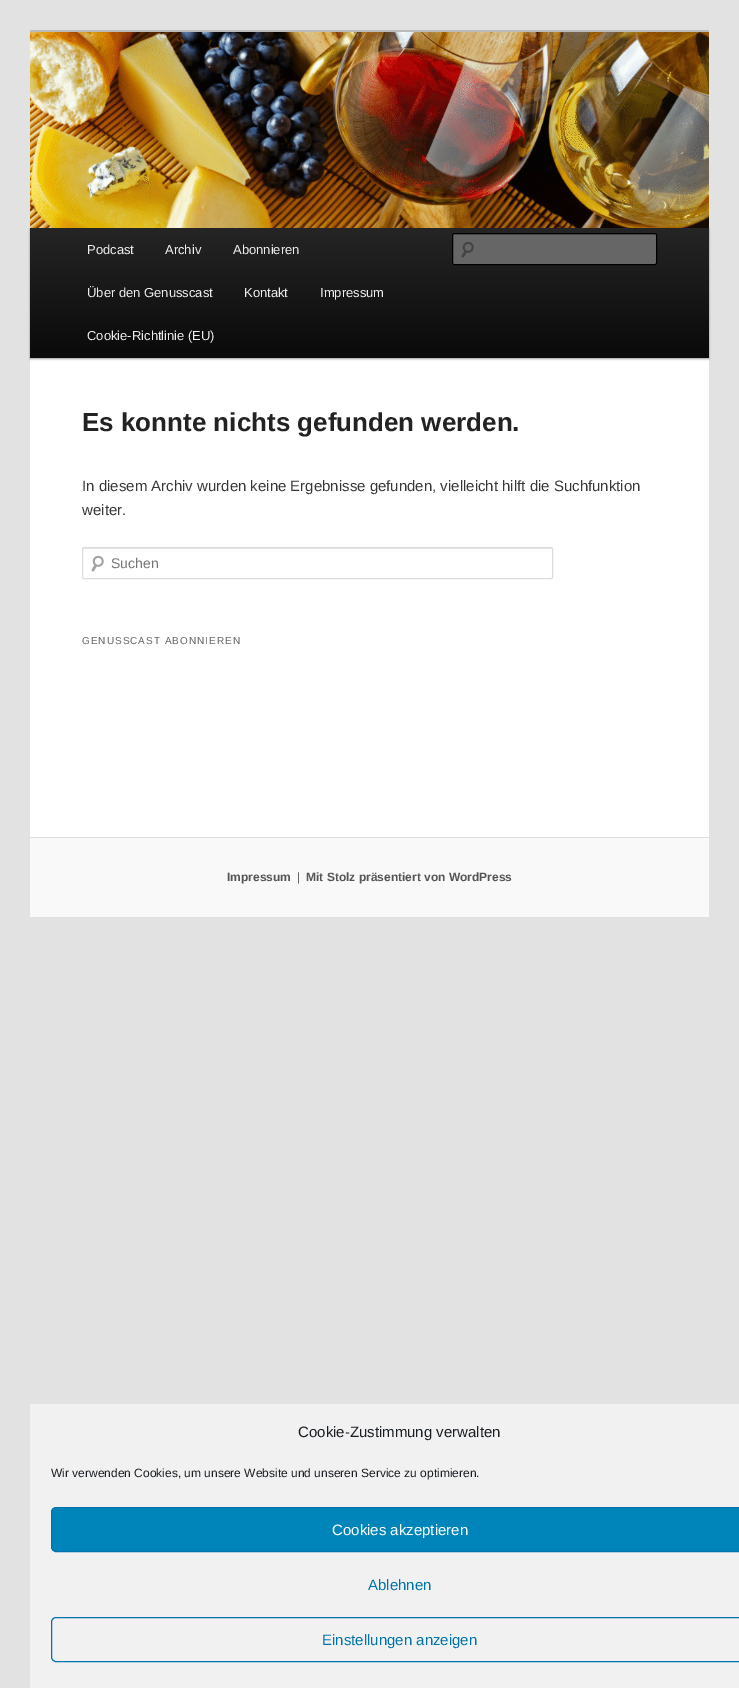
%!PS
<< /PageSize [739 1688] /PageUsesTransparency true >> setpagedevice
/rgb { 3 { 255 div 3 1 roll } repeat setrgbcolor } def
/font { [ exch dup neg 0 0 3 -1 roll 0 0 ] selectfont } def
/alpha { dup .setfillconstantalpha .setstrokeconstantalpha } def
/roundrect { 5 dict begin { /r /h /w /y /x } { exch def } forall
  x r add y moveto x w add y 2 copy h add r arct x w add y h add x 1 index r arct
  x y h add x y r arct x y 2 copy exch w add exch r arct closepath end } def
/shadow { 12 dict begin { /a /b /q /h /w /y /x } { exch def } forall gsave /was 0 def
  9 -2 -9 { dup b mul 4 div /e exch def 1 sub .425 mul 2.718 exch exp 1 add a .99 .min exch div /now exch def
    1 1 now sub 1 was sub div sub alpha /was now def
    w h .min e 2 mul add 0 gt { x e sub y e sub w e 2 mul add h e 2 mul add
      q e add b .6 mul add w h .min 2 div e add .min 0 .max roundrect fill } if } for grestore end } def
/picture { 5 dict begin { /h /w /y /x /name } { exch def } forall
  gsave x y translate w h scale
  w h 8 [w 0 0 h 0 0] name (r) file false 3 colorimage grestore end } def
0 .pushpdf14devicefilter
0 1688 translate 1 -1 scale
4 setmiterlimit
226 226 226 rgb
0 0 739 1688 rectfill
255 255 255 rgb
30 358 679 479 rectfill
187 187 187 rgb
30 30 679 2 rectfill
0 0 0 rgb
30 229 679 130 0 1 0.4 shadow
(img/1.rgb) 30 32 679 196 picture
gsave 30 228 moveto 709 228 lineto 709 358 lineto 30 358 lineto closepath clip newpath
<< /ShadingType 2 /ColorSpace /DeviceRGB /Coords [370 228 370 358] /Extend [true true] /Function << /FunctionType 2 /Domain [0 1] /C0 [0.145 0.145 0.145] /C1 [0.039 0.039 0.039] /N 1 >> >> shfill grestore
102 102 102 rgb
452 233 205 32 2 roundrect fill
(img/2.rgb) 461 241 13 17 picture
92 92 92 rgb
454 235 moveto 656 235 lineto 656 236 lineto 656 235 656 234 655 234 curveto 454 234 lineto 453 234 lineto 453 236 lineto 453 235 453 235 454 235 curveto closepath fill
0 0 0 rgb
452.5 233.5 204 31 1.5 roundrect stroke
(img/3.rgb) 91 555 13 17 picture
230 230 230 rgb
84 549 moveto 551 549 lineto 552 549 552 549 552 550 curveto 552 549 lineto 551 548 lineto 83 548 lineto 83 550 lineto 83 549 83 549 84 549 curveto closepath fill
221 221 221 rgb
82.5 547.5 470 31 1.5 roundrect stroke
[
  [30 838 679 79 249 249 249]
  [30 837 679 1 221 221 221]
  [30 1404 709 284 241 241 241]
] { aload pop rgb rectfill } forall
0 133 186 rgb
51.5 1507.5 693 44 4.5 roundrect gsave fill grestore
0 115 170 rgb
stroke
51.5 1617.5 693 44 4.5 roundrect stroke
/LiberationSans-Regular 13 font
238 238 238 rgb
[
  [(Podcast) 87 254]
  [(Archiv) 165 254]
  [(Abonnieren) 233 254]
  [(Über den Genusscast) 87 297]
  [(Kontakt) 244 297]
  [(Impressum) 320 297]
  [(Cookie-Richtlinie \(EU\)) 87 340]
] { aload pop moveto show } forall
/LiberationSans-Bold 26 font
34 34 34 rgb
82 431 moveto (Es konnte nichts gefunden werden.) show
/LiberationSans-Regular 15 font
55 55 55 rgb
82 491 moveto (In diesem Archiv wurden keine Ergebnisse gefunden, vielleicht hilft die Suchfunktion) show
82 515 moveto (weiter.) show
/LiberationSans-Regular 14 font
117 117 117 rgb
111 568 moveto (Suchen) show
/LiberationSans-Regular 10 font
102 102 102 rgb
82 644 moveto 1 0 (GENUSSCAST ABONNIEREN) ashow
/LiberationSans-Bold 12 font
85 85 85 rgb
227 881 moveto (Impressum) show
/LiberationSans-Regular 12 font
102 102 102 rgb
297 881 moveto (|) show
/LiberationSans-Bold 12 font
85 85 85 rgb
306 881 moveto (Mit Stolz präsentiert von WordPress) show
/LiberationSans-Regular 15 font
25 30 35 rgb
298 1437 moveto (Cookie-Zustimmung verwalten) show
/LiberationSans-Regular 12 font
51 1477 moveto (Wir verwenden Cookies, um unsere Website und unseren Service zu optimieren.) show
/LiberationSans-Regular 15 font
255 255 255 rgb
332 1535 moveto (Cookies akzeptieren) show
0 115 170 rgb
368 1590 moveto (Ablehnen) show
322 1645 moveto (Einstellungen anzeigen) show
.poppdf14devicefilter showpage
